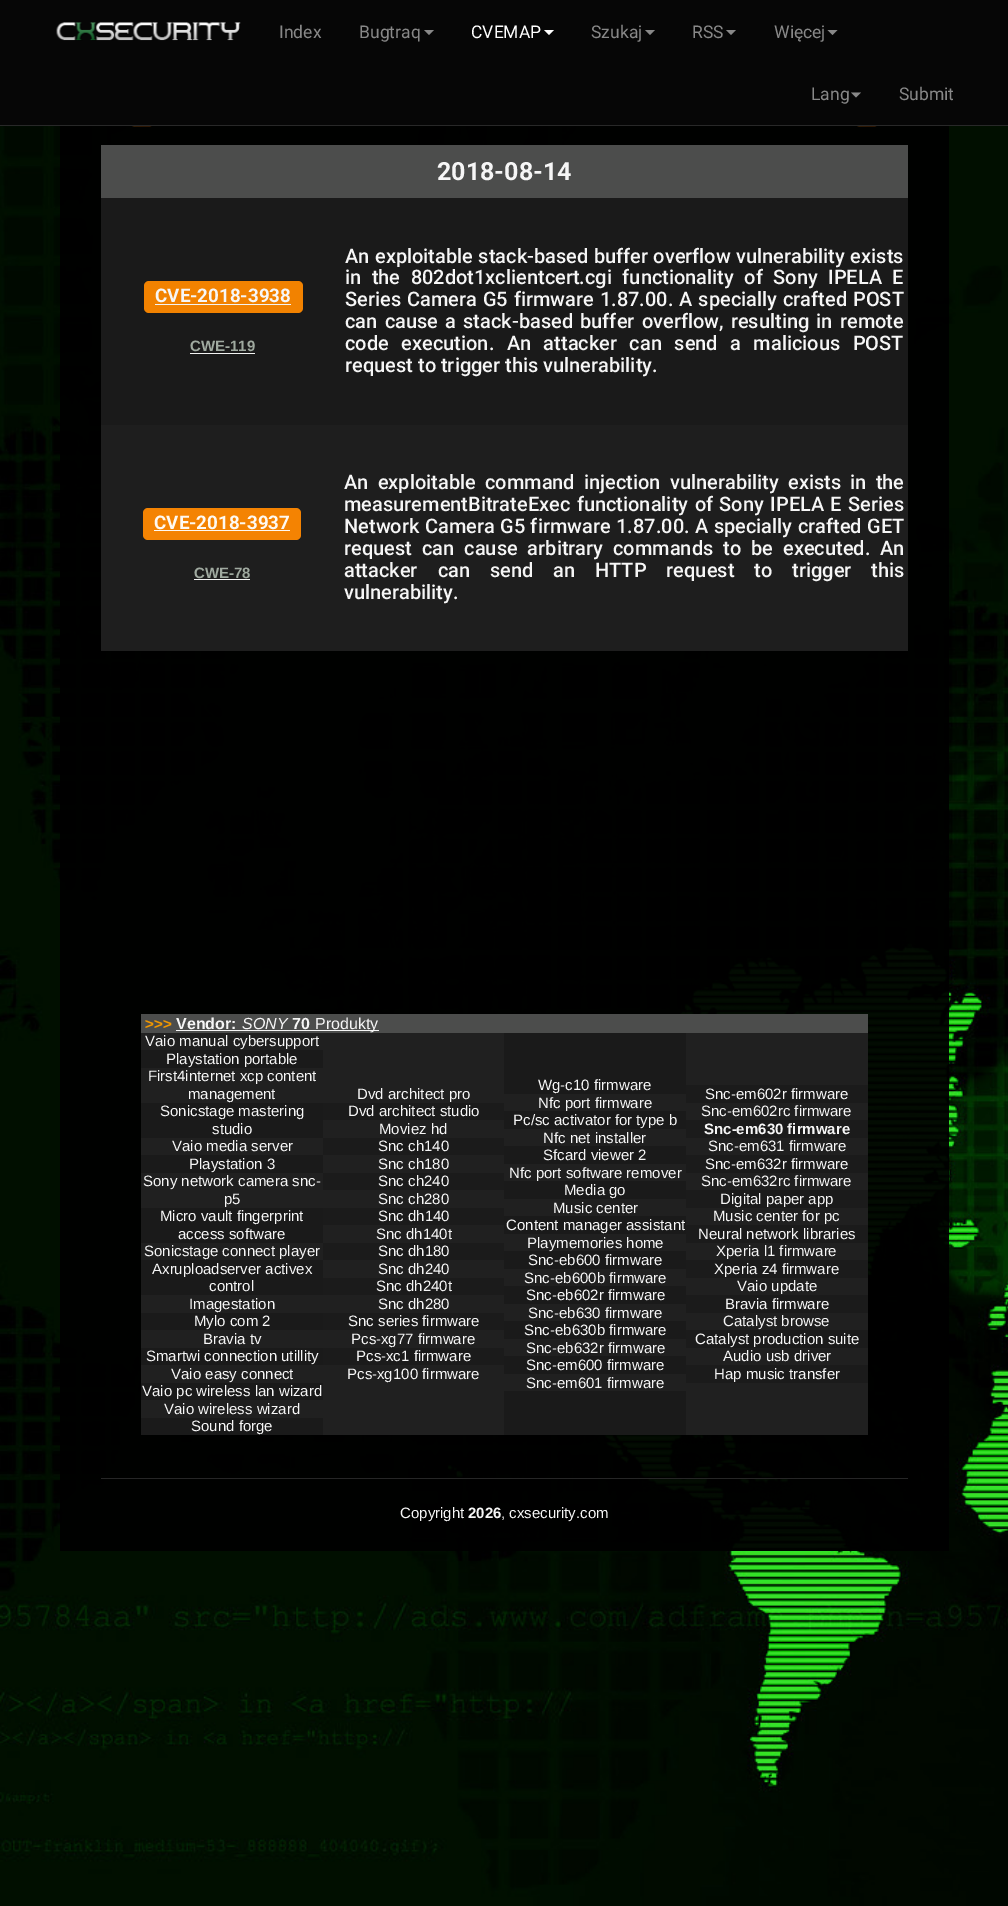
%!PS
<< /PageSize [1008 1906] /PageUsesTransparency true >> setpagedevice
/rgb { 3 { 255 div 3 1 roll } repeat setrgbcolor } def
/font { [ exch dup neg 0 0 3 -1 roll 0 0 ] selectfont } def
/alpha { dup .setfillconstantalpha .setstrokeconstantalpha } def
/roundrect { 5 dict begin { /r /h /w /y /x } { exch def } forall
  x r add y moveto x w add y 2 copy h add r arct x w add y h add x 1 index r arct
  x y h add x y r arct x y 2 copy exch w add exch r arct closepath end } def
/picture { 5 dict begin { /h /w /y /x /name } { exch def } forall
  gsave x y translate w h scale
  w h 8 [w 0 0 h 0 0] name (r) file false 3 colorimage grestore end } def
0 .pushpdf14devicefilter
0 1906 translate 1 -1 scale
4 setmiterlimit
255 255 255 rgb
0 0 1008 1906 rectfill
(img/1.rgb) 0 126 1008 1780 picture
6 6 6 rgb
0 0 1008 125 rectfill
40 40 40 rgb
0 125 1008 1 rectfill
(img/2.rgb) 56 22 185 19 picture
136 136 136 rgb
424 30 moveto 434 30 lineto 429 35 lineto closepath fill
255 255 255 rgb
544 30 moveto 554 30 lineto 549 35 lineto closepath fill
136 136 136 rgb
645 30 moveto 655 30 lineto 650 35 lineto closepath fill
726 30 moveto 736 30 lineto 731 35 lineto closepath fill
827.5 30 moveto 837.5 30 lineto 832.5 35 lineto closepath fill
851 92.5 moveto 861 92.5 lineto 856 97.5 lineto closepath fill
0.95 alpha
0 0 0 rgb
60 126 41 1425 rectfill
101 126 807 1425 rectfill
1 alpha
(img/3.rgb) 132 126 20 1 picture
(img/3.rgb) 857 126 20 1 picture
76 77 76 rgb
101 145 807 53 rectfill
26 26 26 rgb
101 198 807 227 rectfill
242 130 0 rgb
144 281 159 32 5 roundrect fill
[
  [155 304 136 1 242 243 242]
  [190 353 65 1 242 243 242]
  [101 425 807 226 30 30 30]
] { aload pop rgb rectfill } forall
244 131 2 rgb
143 508 158 32 5 roundrect fill
[
  [154 530 136 1 254 249 242]
  [194 579 56 1 244 244 244]
] { aload pop rgb rectfill } forall
0.95 alpha
[
  [141 1014 727 19 80 81 80]
] { aload pop rgb rectfill } forall
1 alpha
[
  [176 1030 112 1 246 246 246]
  [288 1030 5 1 242 243 242]
  [293 1030 86 1 246 246 246]
] { aload pop rgb rectfill } forall
0.95 alpha
[
  [141 1033 545 402 27 27 27]
] { aload pop rgb rectfill } forall
1 alpha
[
  [141 1033 182 17 32 32 32]
  [141 1068 182 35 32 32 32]
  [141 1138 182 17 32 32 32]
  [141 1173 182 35 32 32 32]
  [141 1243 182 17 32 32 32]
  [141 1295 182 18 32 32 32]
  [141 1330 182 18 32 32 32]
  [141 1365 182 18 32 32 32]
  [141 1400 182 18 32 32 32]
  [323 1033 181 402 32 32 32]
  [323 1103 181 17 27 27 27]
  [323 1138 181 17 27 27 27]
  [323 1173 181 17 27 27 27]
  [323 1208 181 17 27 27 27]
  [323 1243 181 17 27 27 27]
  [323 1278 181 17 27 27 27]
  [323 1313 181 17 27 27 27]
  [323 1348 181 17 27 27 27]
  [504 1094 182 17 32 32 32]
  [504 1129 182 17 32 32 32]
  [504 1164 182 17 32 32 32]
  [504 1199 182 17 32 32 32]
  [504 1234 182 17 32 32 32]
  [504 1269 182 17 32 32 32]
  [504 1304 182 17 32 32 32]
  [504 1339 182 17 32 32 32]
  [504 1374 182 17 32 32 32]
  [686 1033 182 402 32 32 32]
  [686 1085 182 18 27 27 27]
  [686 1120 182 18 27 27 27]
  [686 1155 182 18 27 27 27]
  [686 1190 182 18 27 27 27]
  [686 1225 182 18 27 27 27]
  [686 1260 182 18 27 27 27]
  [686 1295 182 18 27 27 27]
  [686 1330 182 18 27 27 27]
  [686 1365 182 18 27 27 27]
] { aload pop rgb rectfill } forall
0.95 alpha
[
  [101 1478 807 1 40 40 40]
  [908 126 41 1425 0 0 0]
] { aload pop rgb rectfill } forall
/Roboto-Regular 17.5 font
1 alpha
136 136 136 rgb
279 38 moveto (Index) show
359 38 moveto (Bugtraq) show
255 255 255 rgb
471 38 moveto (CVEMAP) show
136 136 136 rgb
[
  [(Szukaj) 591 38]
  [(RSS) 692 38]
  [(Więcej) 774 38]
  [(Lang) 811 100]
  [(Submit) 899 100]
] { aload pop moveto show } forall
/Roboto-Bold 25 font
246 246 246 rgb
437 180 moveto (2018-08-14) show
/Roboto-Bold 18.75 font
155 302 moveto (CVE-2018-3938) show
/LiberationSans-Bold 15 font
160 170 160 rgb
190 351 moveto (CWE-119) show
/Roboto-Medium 20 font
246 246 246 rgb
345 263 moveto 0.5 0 32 (An exploitable stack-based buffer overflow vulnerability exists) widthshow
345 284 moveto 5.5 0 32 (in the 802dot1xclientcert.cgi functionality of Sony IPELA E) widthshow
345 306 moveto 1 0 32 (Series Camera G5 firmware 1.87.00. A specially crafted POST) widthshow
345 328 moveto 2.25 0 32 (can cause a stack-based buffer overflow, resulting in remote) widthshow
345 350 moveto 7.5 0 32 (code execution. An attacker can send a malicious POST) widthshow
345 372 moveto (request to trigger this vulnerability.) show
/Roboto-Bold 18.75 font
254 249 242 rgb
154 529 moveto (CVE-2018-3937) show
/LiberationSans-Bold 15 font
160 170 160 rgb
194 578 moveto (CWE-78) show
/Roboto-Medium 20 font
246 246 246 rgb
344 489 moveto 4.25 0 32 (An exploitable command injection vulnerability exists in the) widthshow
344 511 moveto 1.5 0 32 (measurementBitrateExec functionality of Sony IPELA E Series) widthshow
344 533 moveto 0.5 0 32 (Network Camera G5 firmware 1.87.00. A specially crafted GET) widthshow
344 555 moveto 5 0 32 (request can cause arbitrary commands to be executed. An) widthshow
344 577 moveto 15 0 32 (attacker can send an HTTP request to trigger this) widthshow
344 599 moveto (vulnerability.) show
/LiberationSans-Bold 15 font
242 152 0 rgb
145 1029 moveto (>>>) show
/LiberationSans-Bold 16 font
246 246 246 rgb
176 1029 moveto (Vendor:) show
/LiberationSans-Italic 16 font
242 1029 moveto (SONY) show
/LiberationSans-Bold 16 font
292 1029 moveto (70) show
/LiberationSans-Regular 16 font
315 1029 moveto (Produkty) show
/LiberationSans-Regular 15 font
[
  [(Vaio manual cybersupport) 145 1046]
  [(Playstation portable) 166 1064]
  [(First4internet xcp content) 148 1081]
  [(management) 188 1099]
  [(Sonicstage mastering) 160 1116]
  [(studio) 212 1134]
  [(Vaio media server) 172 1151]
  [(Playstation 3) 189 1169]
  [(Sony network camera snc-) 143 1186]
  [(p5) 224 1204]
  [(Micro vault fingerprint) 160 1221]
  [(access software) 178 1239]
  [(Sonicstage connect player) 144 1256]
  [(Axruploadserver activex) 152 1274]
  [(control) 209 1291]
  [(Imagestation) 189 1309]
  [(Mylo com 2) 194 1326]
  [(Bravia tv) 203 1344]
  [(Smartwi connection utillity) 146 1361]
  [(Vaio easy connect) 171 1379]
  [(Vaio pc wireless lan wizard) 142 1396]
  [(Vaio wireless wizard) 164 1414]
  [(Sound forge) 191 1431]
  [(Dvd architect pro) 357 1099]
  [(Dvd architect studio) 348 1116]
  [(Moviez hd) 379 1134]
  [(Snc ch140) 378 1151]
  [(Snc ch180) 378 1169]
  [(Snc ch240) 378 1186]
  [(Snc ch280) 378 1204]
  [(Snc dh140) 378 1221]
  [(Snc dh140t) 376 1239]
  [(Snc dh180) 378 1256]
  [(Snc dh240) 378 1274]
  [(Snc dh240t) 376 1291]
  [(Snc dh280) 378 1309]
  [(Snc series firmware) 348 1326]
  [(Pcs-xg77 firmware) 351 1344]
  [(Pcs-xc1 firmware) 356 1361]
  [(Pcs-xg100 firmware) 347 1379]
  [(Wg-c10 firmware) 538 1090]
  [(Nfc port firmware) 538 1108]
  [(Pc/sc activator for type b) 513 1125]
  [(Nfc net installer) 543 1143]
  [(Sfcard viewer 2) 543 1160]
  [(Nfc port software remover) 509 1178]
  [(Media go) 564 1195]
  [(Music center) 553 1213]
  [(Content manager assistant) 506 1230]
  [(Playmemories home) 527 1248]
  [(Snc-eb600 firmware) 528 1265]
  [(Snc-eb600b firmware) 524 1283]
  [(Snc-eb602r firmware) 526 1300]
  [(Snc-eb630 firmware) 528 1318]
  [(Snc-eb630b firmware) 524 1335]
  [(Snc-eb632r firmware) 526 1353]
  [(Snc-em600 firmware) 526 1370]
  [(Snc-em601 firmware) 526 1388]
  [(Snc-em602r firmware) 705 1099]
  [(Snc-em602rc firmware) 701 1116]
] { aload pop moveto show } forall
/LiberationSans-Bold 15 font
704 1134 moveto (Snc-em630 firmware) show
/LiberationSans-Regular 15 font
[
  [(Snc-em631 firmware) 708 1151]
  [(Snc-em632r firmware) 705 1169]
  [(Snc-em632rc firmware) 701 1186]
  [(Digital paper app) 720 1204]
  [(Music center for pc) 713 1221]
  [(Neural network libraries) 698 1239]
  [(Xperia l1 firmware) 716 1256]
  [(Xperia z4 firmware) 714 1274]
  [(Vaio update) 737 1291]
  [(Bravia firmware) 725 1309]
  [(Catalyst browse) 723 1326]
  [(Catalyst production suite) 695 1344]
  [(Audio usb driver) 723 1361]
  [(Hap music transfer) 714 1379]
  [(Copyright) 400 1518]
] { aload pop moveto show } forall
/LiberationSans-Bold 15 font
468 1518 moveto (2026) show
/LiberationSans-Regular 15 font
501 1518 moveto (, cxsecurity.com) show
.poppdf14devicefilter showpage
